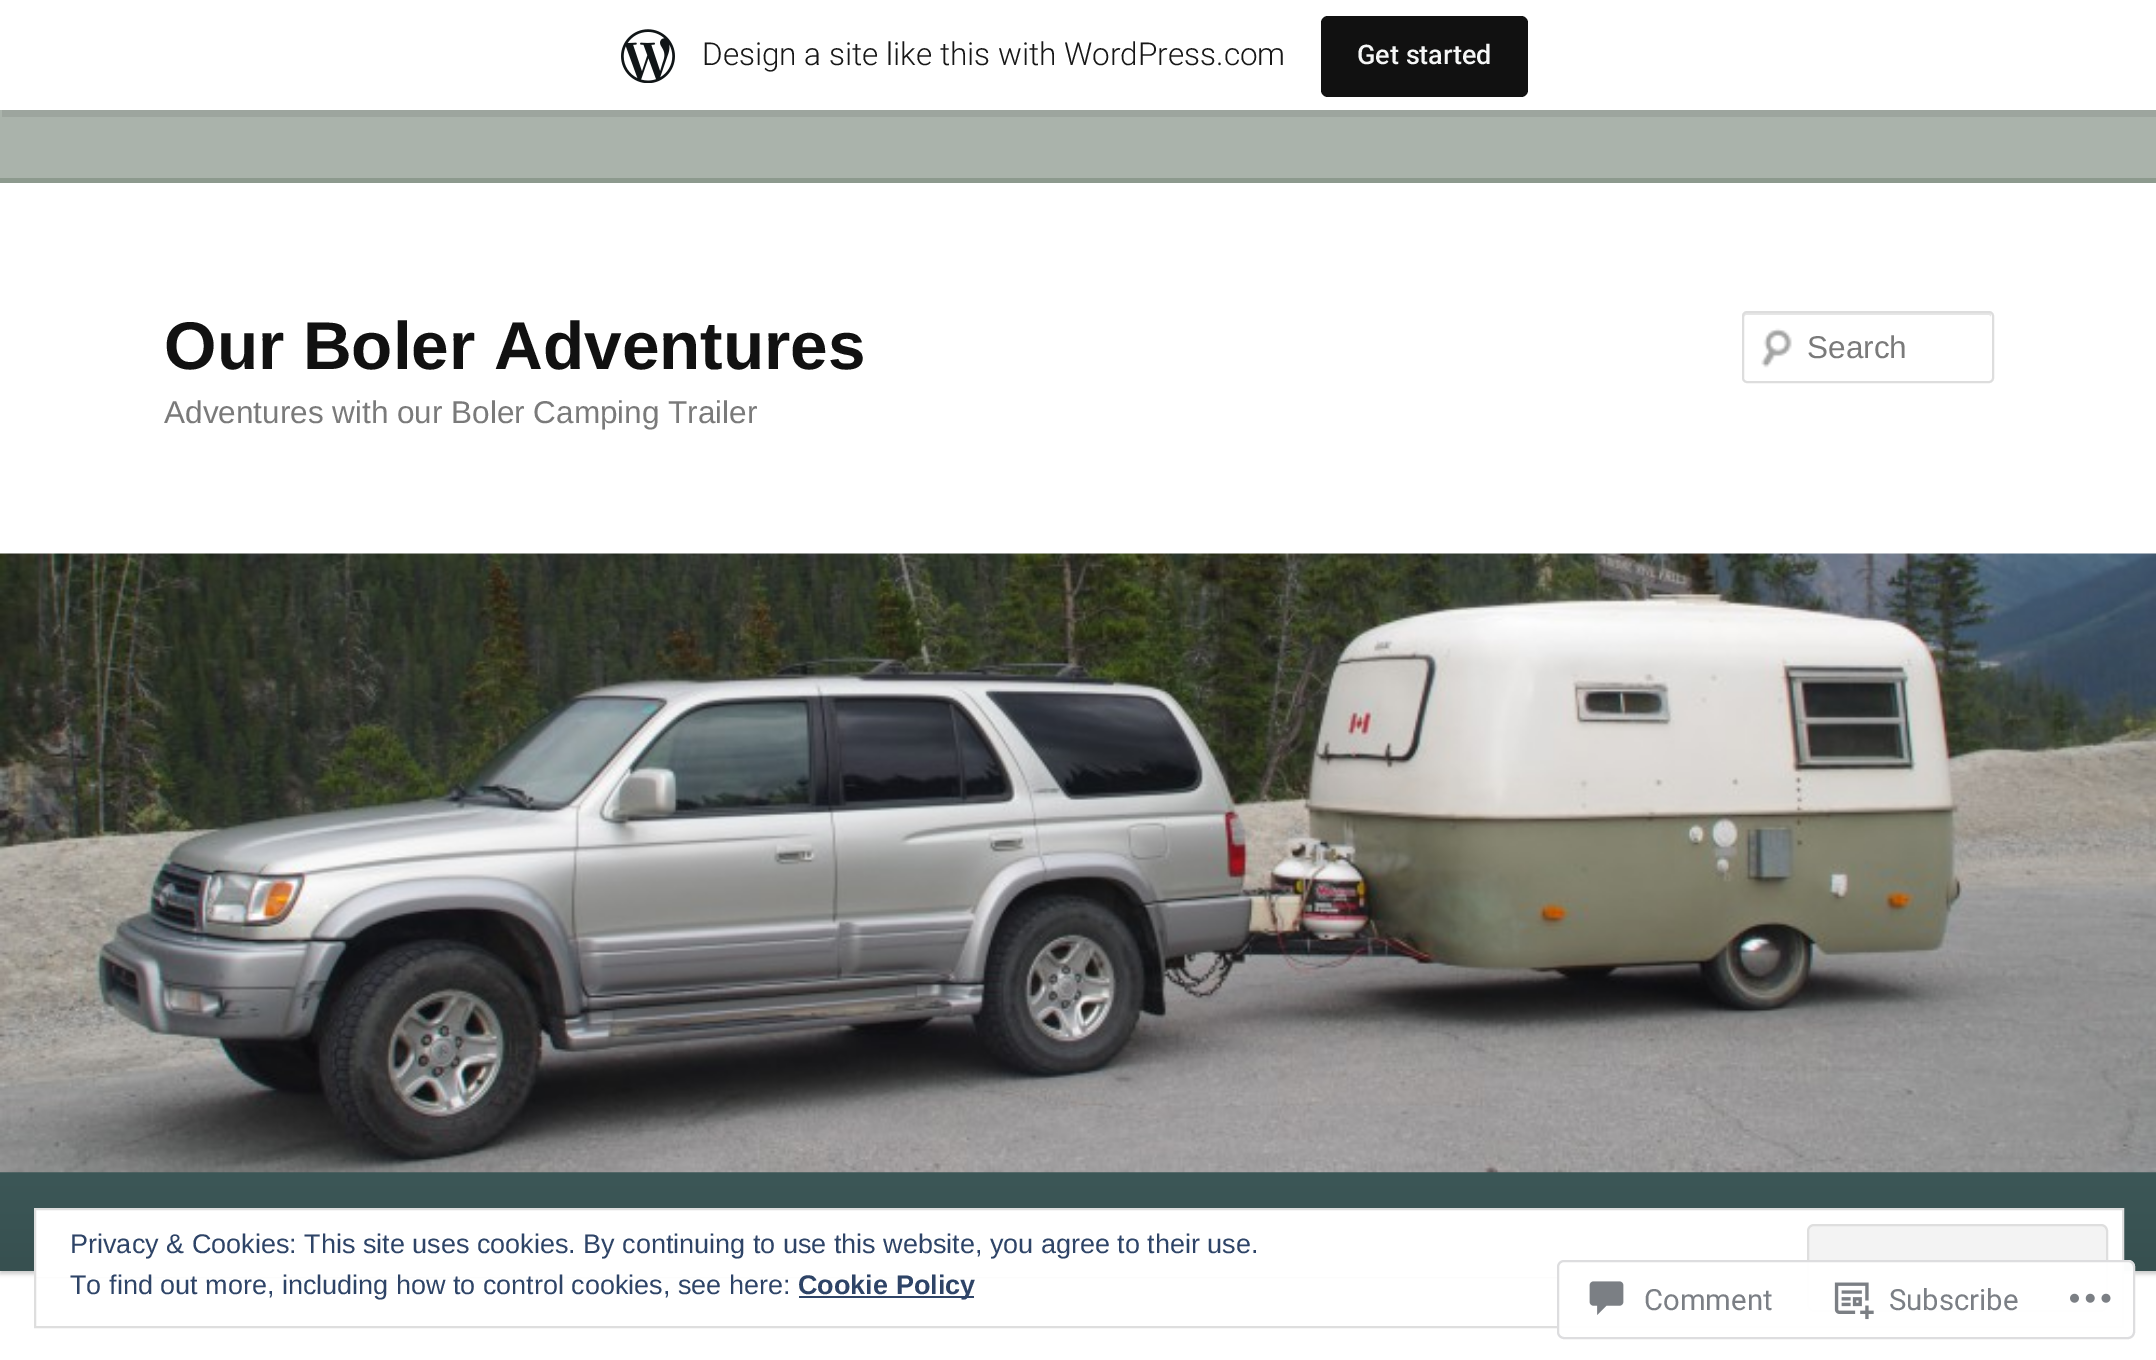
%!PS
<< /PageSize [2156 1360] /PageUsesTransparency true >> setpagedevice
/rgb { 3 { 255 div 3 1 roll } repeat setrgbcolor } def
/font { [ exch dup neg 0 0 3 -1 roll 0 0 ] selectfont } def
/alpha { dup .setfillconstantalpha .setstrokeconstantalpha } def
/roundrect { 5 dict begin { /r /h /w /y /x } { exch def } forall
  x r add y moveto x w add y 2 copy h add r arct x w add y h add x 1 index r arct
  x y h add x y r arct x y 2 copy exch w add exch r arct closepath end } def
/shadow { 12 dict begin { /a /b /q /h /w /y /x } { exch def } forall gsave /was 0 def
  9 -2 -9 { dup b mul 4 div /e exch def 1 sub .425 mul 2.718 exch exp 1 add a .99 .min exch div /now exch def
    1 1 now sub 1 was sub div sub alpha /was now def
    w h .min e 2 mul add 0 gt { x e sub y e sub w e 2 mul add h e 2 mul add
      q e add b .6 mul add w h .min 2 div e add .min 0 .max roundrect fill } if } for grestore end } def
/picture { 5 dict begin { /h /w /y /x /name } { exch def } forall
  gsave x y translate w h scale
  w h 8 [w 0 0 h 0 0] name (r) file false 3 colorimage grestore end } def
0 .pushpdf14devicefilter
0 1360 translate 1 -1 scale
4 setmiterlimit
170 179 171 rgb
0 0 2156 1360 rectfill
0.08 alpha
0 0 0 rgb
2 110 moveto 2 117 lineto 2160 117 lineto 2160 7 lineto 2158 7 lineto 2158 110 lineto closepath fill
1 alpha
255 255 255 rgb
0 0 2156 110 rectfill
(img/1.rgb) 621 29 54 54 picture
17 17 17 rgb
1321 16 207 81 7 roundrect fill
255 255 255 rgb
0 183 2156 1177 rectfill
141 154 142 rgb
0 178 2156 5 rectfill
(img/2.rgb) 1761 328 31 40 picture
230 230 230 rgb
1746 315 moveto 1989 315 lineto 1990 315 1991 316 1991 317 curveto 1991 315 1991 313 1989 313 curveto 1746 313 lineto 1744 313 1744 315 1744 317 curveto 1744 316 1745 315 1746 315 curveto closepath fill
221 221 221 rgb
2 setlinewidth
1743 312 250 70 4 roundrect stroke
0 0 0 rgb
0 1175 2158 99 0 2 0.2 shadow
gsave 0 1172 moveto 2156 1172 lineto 2156 1271 lineto 0 1271 lineto closepath clip newpath
<< /ShadingType 2 /ColorSpace /DeviceRGB /Coords [1079 1172 1079 1271] /Extend [true true] /Function << /FunctionType 2 /Domain [0 1] /C0 [0.235 0.341 0.341] /C1 [0.216 0.314 0.314] /N 1 >> >> shfill grestore
(img/3.rgb) 0 553 2156 620 picture
255 255 255 rgb
36 1210 2086 67 rectfill
222 222 222 rgb
35 1209 2088 118 rectstroke
243 243 243 rgb
1808 1225 299 86 6 roundrect gsave fill grestore
222 222 222 rgb
stroke
46 68 103 rgb
799 1296 175 2 rectfill
0.98 alpha
255 255 255 rgb
1557 1260 578 79 7 roundrect fill
220 220 222 rgb
1558 1261 576 77 6 roundrect stroke
1 alpha
(img/4.rgb) 1589 1281 35 34 picture
(img/5.rgb) 1834 1282 40 38 picture
(img/6.rgb) 2070 1293 41 10 picture
/Roboto-Light 31.5 font
23 23 23 rgb
702 65 moveto (Design a site like this with WordPress.com) show
/Roboto-Medium 27 font
246 247 247 rgb
1357 64 moveto (Get started) show
/LiberationSans-Bold 67.5 font
17 17 17 rgb
164 369 moveto (Our Boler Adventures) show
/LiberationSans-Regular 31.5 font
122 122 122 rgb
164 423 moveto (Adventures with our Boler Camping Trailer) show
1807 358 moveto (Search) show
/LiberationSans-Regular 27 font
46 68 103 rgb
70 1253 moveto (Privacy & Cookies: This site uses cookies. By continuing to use this website, you agree to their use.) show
70 1294 moveto (To find out more, including how to control cookies, see here:) show
/LiberationSans-Bold 27 font
798 1294 moveto (Cookie Policy) show
/Roboto-Regular 29.25 font
123 127 133 rgb
1644 1310 moveto (Comment) show
1889 1310 moveto (Subscribe) show
.poppdf14devicefilter showpage
